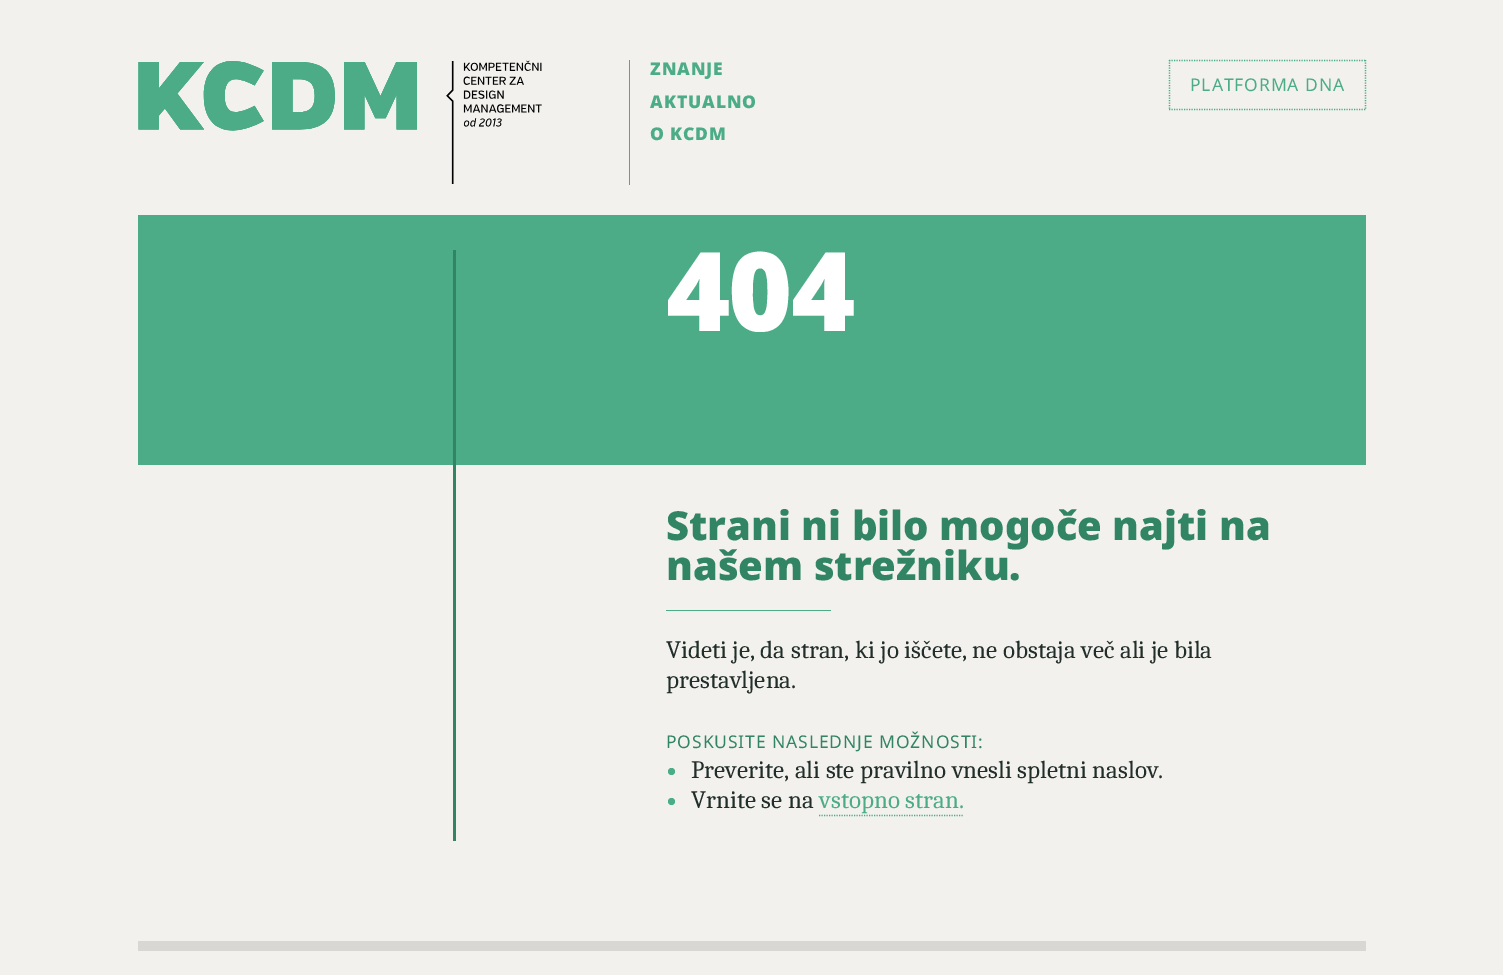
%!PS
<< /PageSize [1503 975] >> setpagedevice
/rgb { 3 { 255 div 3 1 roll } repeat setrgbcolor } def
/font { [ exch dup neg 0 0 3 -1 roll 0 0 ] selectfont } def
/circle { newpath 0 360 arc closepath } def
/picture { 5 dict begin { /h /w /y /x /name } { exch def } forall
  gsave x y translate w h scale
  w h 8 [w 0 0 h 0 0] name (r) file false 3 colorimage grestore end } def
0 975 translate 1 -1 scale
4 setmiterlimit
242 241 238 rgb
0 0 1503 975 rectfill
(img/1.rgb) 138 60 404 124 picture
75 172 135 rgb
629 60 1 125 rectfill
1.2 setlinewidth
[1.25 1.25] 0 setdash
1169 60.5 moveto 1366 60.5 lineto stroke
1365.5 60 moveto 1365.5 110 lineto stroke
1169 109.5 moveto 1366 109.5 lineto stroke
1169.5 60 moveto 1169.5 110 lineto stroke
[
  [138 215 1228 250 75 172 135]
  [453 250 3 591 49 133 101]
  [666 610 165 1 75 172 135]
] { aload pop rgb rectfill } forall
671.5 771.5 3.5 circle fill
671.5 801.5 3.5 circle fill
819 815.5 moveto 964 815.5 lineto stroke
216 215 211 rgb
138 941 1228 10 rectfill
/NotoSans-Black 17.5 font
75 172 135 rgb
650 75 moveto 0.9 0 (ZNANJE) ashow
650 108 moveto 0.9 0 (AKTUALNO) ashow
650 140 moveto 0.9 0 (O KCDM) ashow
/NotoSans-Regular 17.5 font
1190 91 moveto 0.9 0 (PLATFORMA DNA) ashow
/NotoSans-Black 110 font
255 255 255 rgb
666 331 moveto -2 0 (404) ashow
/NotoSans-Black 40 font
49 133 101 rgb
666 540 moveto (Strani ni bilo mogoče najti na) show
666 580 moveto (našem strežniku.) show
/Caladea-Regular 25 font
34 46 41 rgb
666 658 moveto (Videti je, da stran, ki jo iščete, ne obstaja več ali je bila) show
666 688 moveto (prestavljena.) show
/NotoSans-Regular 17.5 font
49 133 101 rgb
666 748 moveto 0.9 0 (POSKUSITE NASLEDNJE MOŽNOSTI:) ashow
/Caladea-Regular 25 font
34 46 41 rgb
691 778 moveto (Preverite, ali ste pravilno vnesli spletni naslov.) show
691 808 moveto (Vrnite se na) show
75 172 135 rgb
819 808 moveto (vstopno stran.) show
showpage
